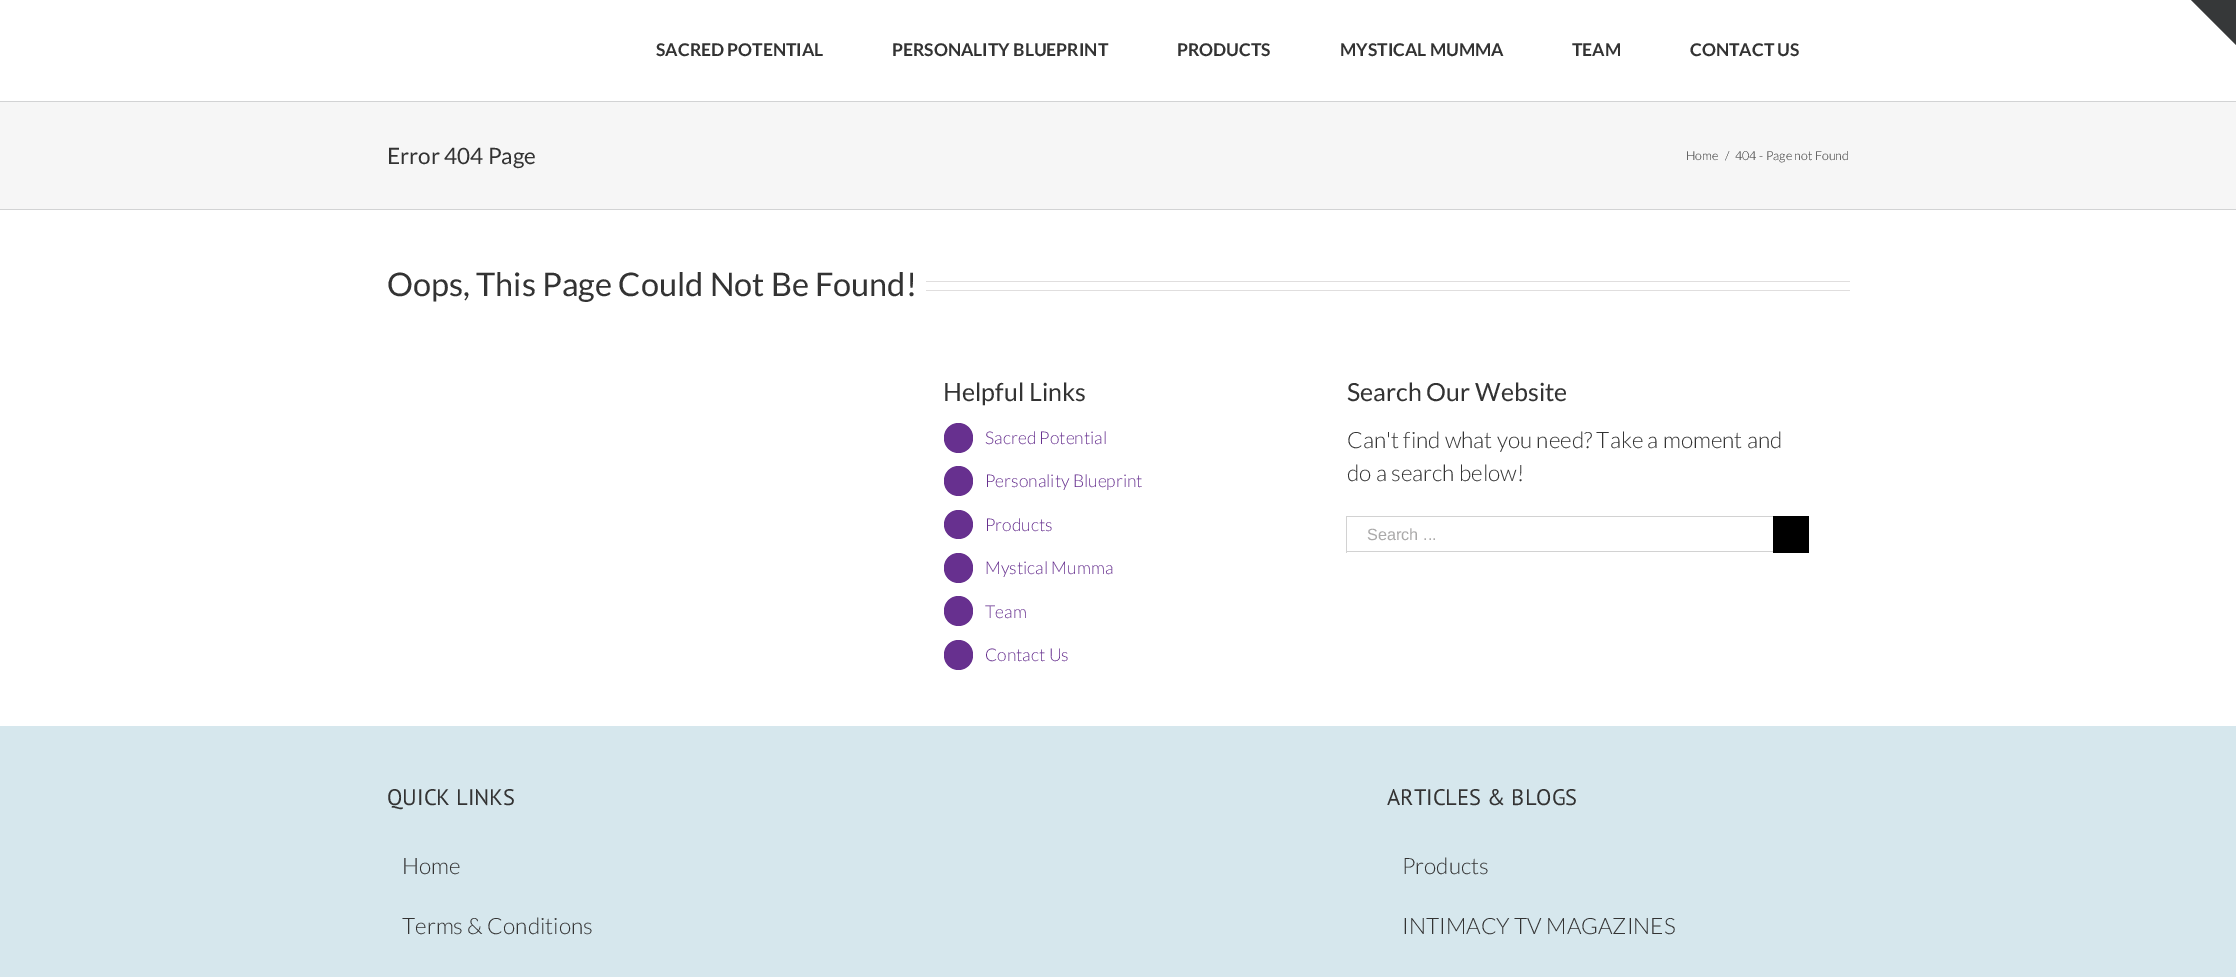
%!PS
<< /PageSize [2236 977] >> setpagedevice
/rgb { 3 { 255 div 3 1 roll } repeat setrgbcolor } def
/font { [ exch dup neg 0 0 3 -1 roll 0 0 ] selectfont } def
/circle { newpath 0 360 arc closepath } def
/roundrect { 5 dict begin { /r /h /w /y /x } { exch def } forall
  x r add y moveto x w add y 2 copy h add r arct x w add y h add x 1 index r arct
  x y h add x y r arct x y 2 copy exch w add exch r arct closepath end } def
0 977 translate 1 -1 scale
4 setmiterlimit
255 255 255 rgb
0 0 2236 977 rectfill
54 56 57 rgb
2191 0 moveto 2236 0 lineto 2236 45 lineto closepath fill
[
  [0 102 2236 107 246 246 246]
  [0 101 2236 1 210 211 212]
  [0 209 2236 1 210 211 212]
  [926 281 924 1 224 222 222]
  [926 290 924 1 224 222 222]
] { aload pop rgb rectfill } forall
103 48 143 rgb
944 423 29 30 14.5 roundrect fill
944 466 29 30 14.5 roundrect fill
958.5 524.5 14.5 circle fill
944 553 29 30 14.5 roundrect fill
944 596 29 30 14.5 roundrect fill
944 640 29 30 14.5 roundrect fill
[
  [1346 516 427 1 210 210 210]
  [1346 551 427 1 210 210 210]
  [1346 516 1 37 210 210 210]
  [1773 516 36 37 0 0 0]
  [0 726 2236 251 214 231 237]
] { aload pop rgb rectfill } forall
/Lato-Bold 17.5 font
51 51 51 rgb
[
  [(SACRED POTENTIAL) 656 56]
  [(PERSONALITY BLUEPRINT) 892 56]
  [(PRODUCTS) 1177 56]
  [(MYSTICAL MUMMA) 1340 56]
  [(TEAM) 1572 56]
  [(CONTACT US) 1690 56]
] { aload pop moveto show } forall
/Lato-Regular 22.5 font
387 164 moveto (Error 404 Page) show
/Lato-Light 12.5 font
[
  [(Home) 1686 160]
  [(/) 1725 160]
  [(404 - Page not Found) 1735 160]
] { aload pop moveto show } forall
/Lato-Regular 32.5 font
387 296 moveto (Oops, This Page Could Not Be Found!) show
/Lato-Regular 25 font
943 401 moveto (Helpful Links) show
/Lato-Light 17.5 font
103 48 143 rgb
[
  [(Sacred Potential) 985 444]
  [(Personality Blueprint) 985 487]
  [(Products) 985 531]
  [(Mystical Mumma) 985 574]
  [(Team) 985 618]
  [(Contact Us) 985 661]
] { aload pop moveto show } forall
/Lato-Regular 25 font
51 51 51 rgb
1347 401 moveto (Search Our Website) show
/Lato-Light 22.5 font
1347 448 moveto (Can't find what you need? Take a moment and) show
1347 481 moveto (do a search below!) show
/LiberationSans-Regular 16.25 font
170 169 169 rgb
1367 540 moveto (Search ...) show
/PTSans-Regular 22.5 font
51 51 51 rgb
387 805 moveto (QUICK LINKS) show
/Lato-Light 22.5 font
402 874 moveto (Home) show
402 934 moveto (Terms & Conditions) show
/PTSans-Regular 22.5 font
1387 805 moveto (ARTICLES & BLOGS) show
/Lato-Light 22.5 font
1402 874 moveto (Products) show
1402 934 moveto (INTIMACY TV MAGAZINES) show
showpage
